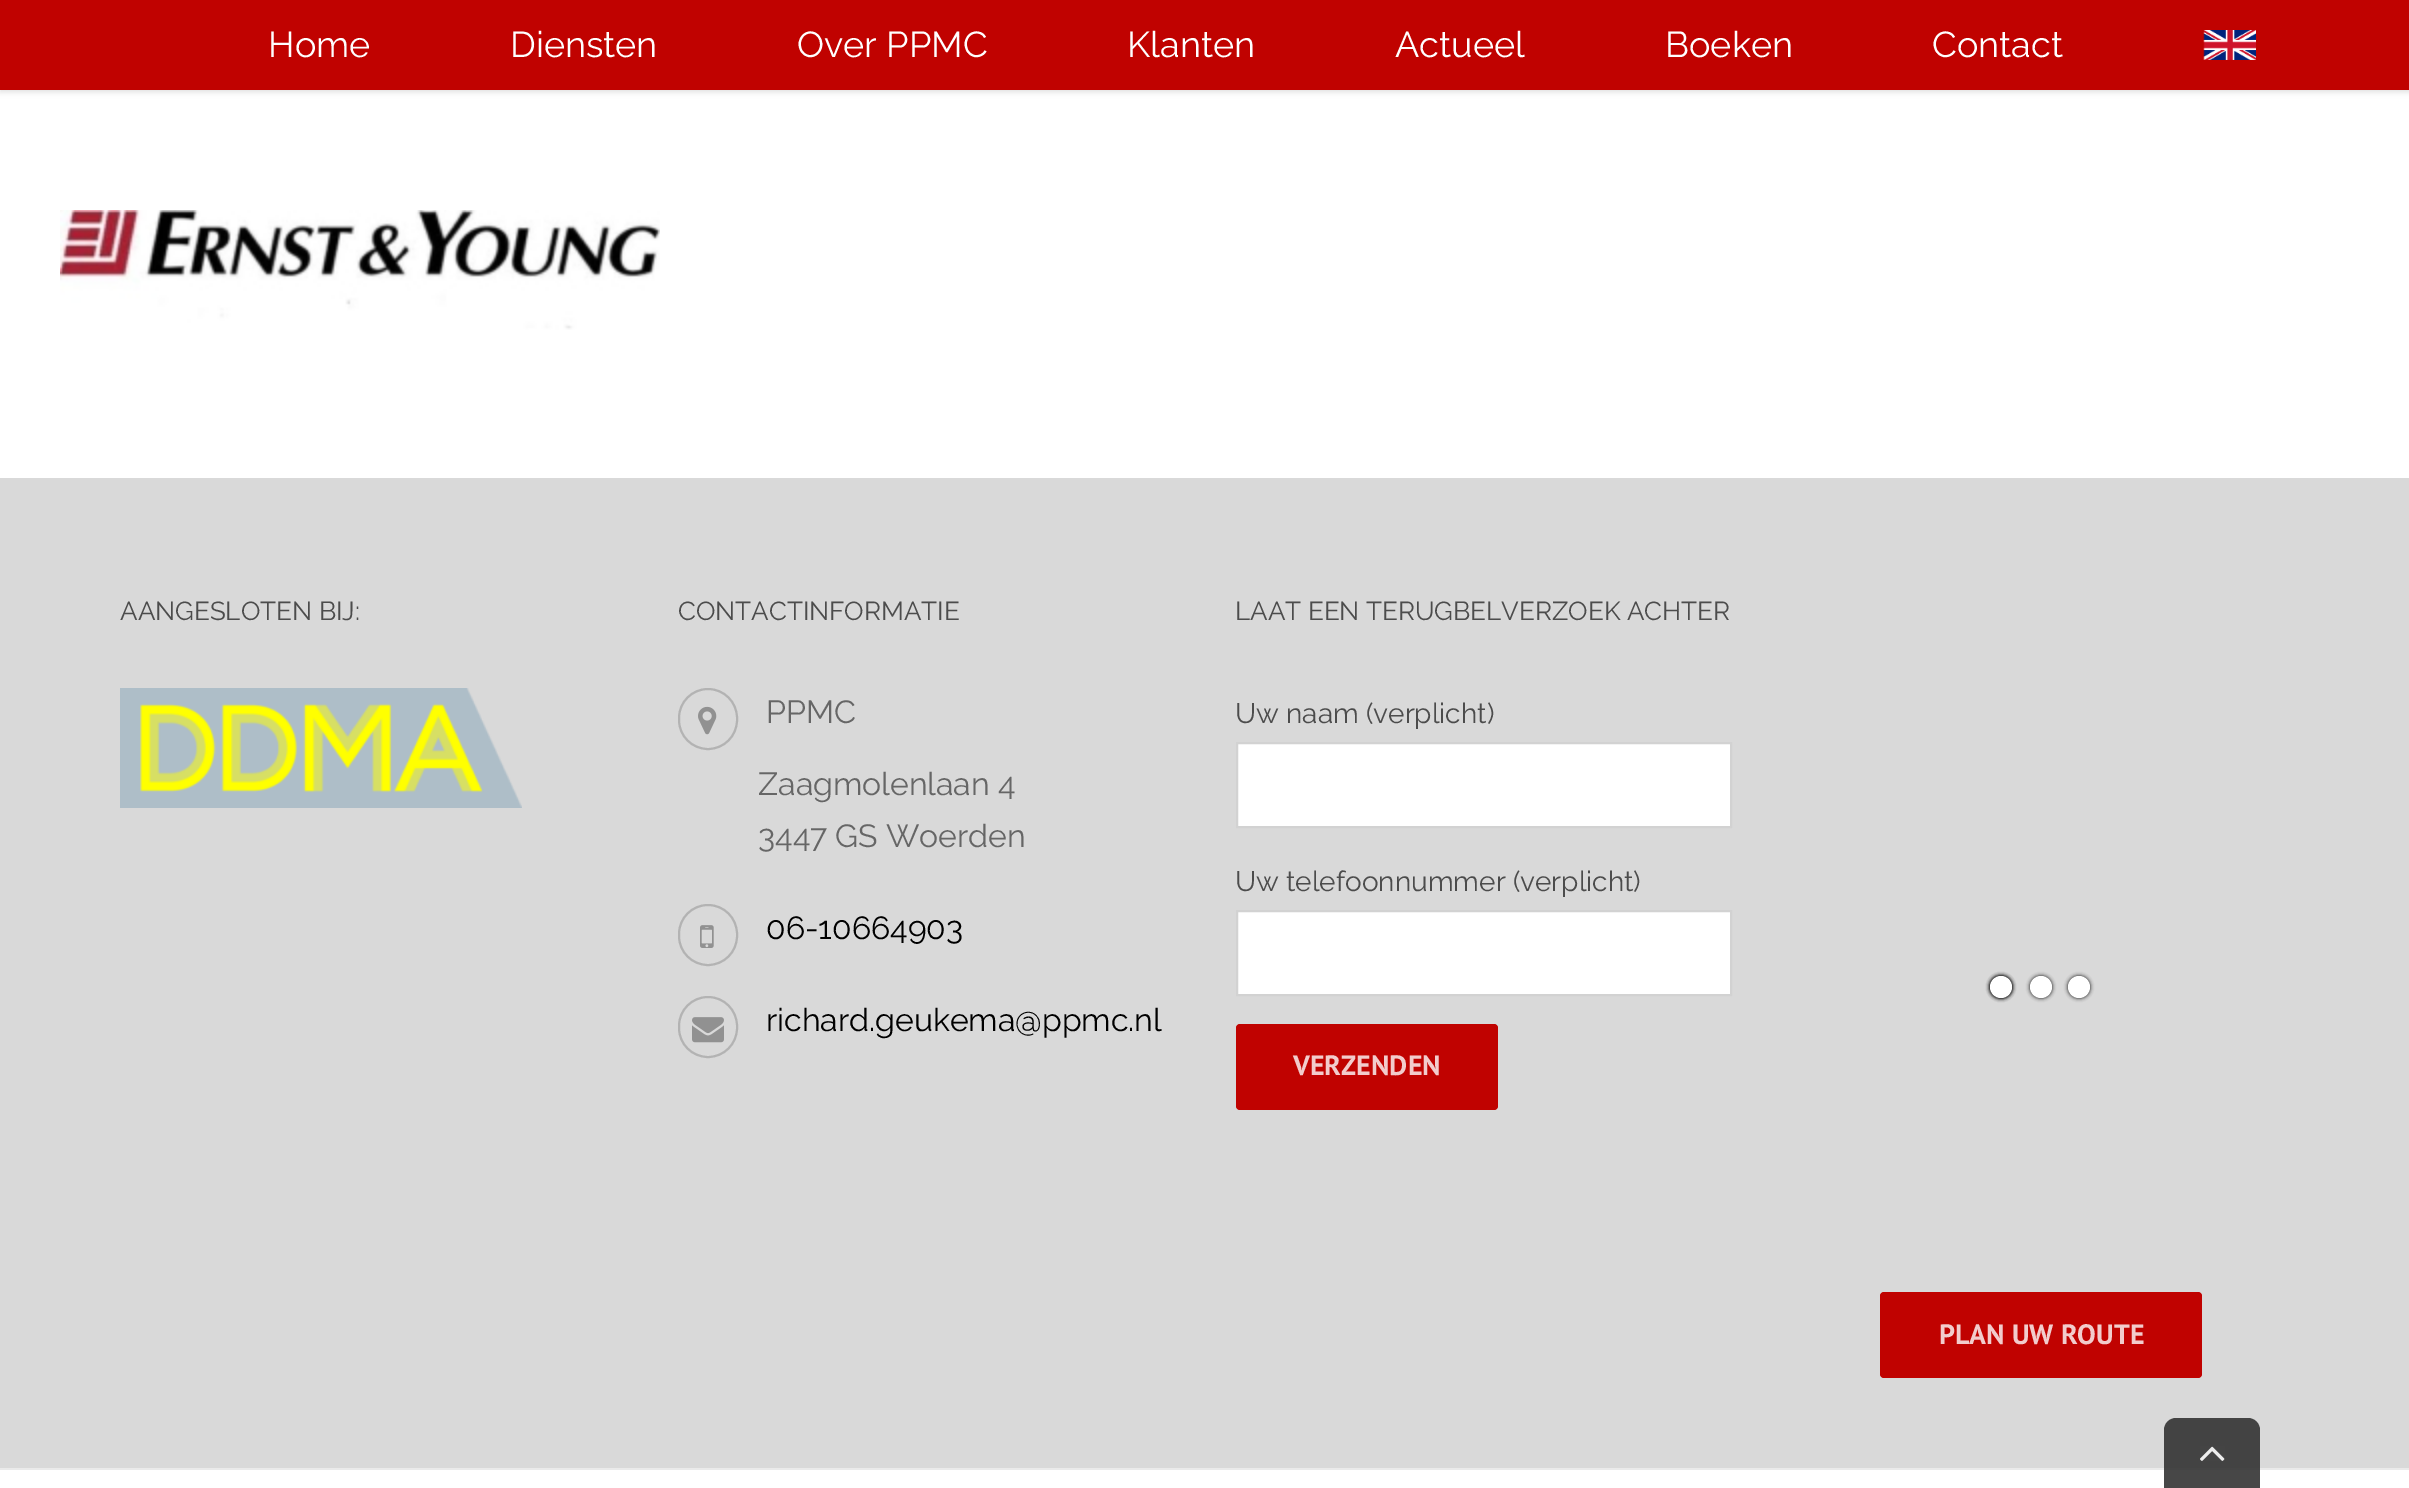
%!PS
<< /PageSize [2409 1488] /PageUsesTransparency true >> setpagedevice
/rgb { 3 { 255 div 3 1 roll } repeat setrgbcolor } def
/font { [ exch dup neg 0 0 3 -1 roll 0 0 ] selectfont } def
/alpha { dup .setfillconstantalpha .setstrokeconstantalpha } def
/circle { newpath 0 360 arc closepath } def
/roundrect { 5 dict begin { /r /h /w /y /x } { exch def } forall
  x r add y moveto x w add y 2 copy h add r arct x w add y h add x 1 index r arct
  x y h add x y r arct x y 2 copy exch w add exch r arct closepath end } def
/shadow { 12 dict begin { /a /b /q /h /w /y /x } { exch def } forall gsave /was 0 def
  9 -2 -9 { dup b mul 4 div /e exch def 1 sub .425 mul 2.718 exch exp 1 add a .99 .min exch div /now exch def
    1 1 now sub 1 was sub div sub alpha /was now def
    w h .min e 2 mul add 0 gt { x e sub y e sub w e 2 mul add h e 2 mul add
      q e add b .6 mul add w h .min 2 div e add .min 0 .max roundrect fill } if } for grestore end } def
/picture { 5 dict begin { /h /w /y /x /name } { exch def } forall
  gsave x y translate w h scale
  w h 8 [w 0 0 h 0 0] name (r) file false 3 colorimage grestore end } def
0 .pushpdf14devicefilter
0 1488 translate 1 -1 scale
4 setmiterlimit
255 255 255 rgb
0 0 2409 1488 rectfill
0 0 0 rgb
0 2 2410 90 0 3 0.12 shadow
192 2 0 rgb
0 0 2409 90 rectfill
(img/1.rgb) 2203 30 53 30 picture
(img/2.rgb) 60 210 600 120 picture
217 217 217 rgb
0 478 2409 990 rectfill
(img/3.rgb) 120 688 402 120 picture
179 179 179 rgb
2 setlinewidth
679 689 58 60 29 roundrect stroke
(img/4.rgb) 698 706 19 29 picture
679 905 58 60 29 roundrect stroke
(img/5.rgb) 700 925 14 23 picture
679 997 58 60 29 roundrect stroke
(img/6.rgb) 692 1017 32 26 picture
255 255 255 rgb
1237 743 moveto 1731 743 lineto 1731 827 lineto 1237 827 lineto closepath gsave fill grestore
210 210 210 rgb
stroke
255 255 255 rgb
1237 911 moveto 1731 911 lineto 1731 995 lineto 1237 995 lineto closepath gsave fill grestore
210 210 210 rgb
stroke
192 2 0 rgb
1236 1024 262 86 4 roundrect fill
0 0 0 rgb
1990 976 22 22 11 2 1 shadow
1990 976 22 22 11 2 1 shadow
255 255 255 rgb
2001 987 11 circle fill
0 0 0 rgb
2030 976 22 22 11 2 1 shadow
255 255 255 rgb
2041 987 11 circle fill
0 0 0 rgb
2068 976 22 22 11 2 1 shadow
255 255 255 rgb
2079 987 11 circle fill
192 2 0 rgb
1880 1292 322 86 4 roundrect fill
234 234 234 rgb
0 1468 2409 2 rectfill
0.9 alpha
51 51 51 rgb
2176 1418 moveto 2248 1418 lineto 2254.5 1418 2260 1423.5 2260 1430 curveto 2260 1488 lineto 2164 1488 lineto 2164 1430 lineto 2164 1423.5 2169.5 1418 2176 1418 curveto closepath fill
1 alpha
(img/7.rgb) 2200 1446 25 15 picture
/Raleway-Regular 36 font
255 255 255 rgb
[
  [(Home) 268 57]
  [(Diensten) 510 57]
  [(Over PPMC) 797 57]
  [(Klanten) 1127 57]
  [(Actueel) 1395 57]
  [(Boeken) 1665 57]
  [(Contact) 1932 57]
] { aload pop moveto show } forall
/Raleway-Regular 26 font
76 76 76 rgb
120 620 moveto (AANGESLOTEN BIJ:) show
678 620 moveto (CONTACTINFORMATIE) show
/Raleway-Regular 32 font
102 102 102 rgb
[
  [(PPMC) 766 723]
  [(Zaagmolenlaan 4) 758 795]
  [(3447 GS Woerden) 758 847]
] { aload pop moveto show } forall
0 0 0 rgb
766 939 moveto (06-10664903) show
766 1031 moveto (richard.geukema@ppmc.nl) show
/Raleway-Regular 26 font
76 76 76 rgb
1235 620 moveto (LAAT EEN TERUGBELVERZOEK ACHTER) show
/Raleway-Regular 28 font
1235 723 moveto (Uw naam \(verplicht\)) show
1235 891 moveto (Uw telefoonnummer \(verplicht\)) show
/PTSans-Bold 28 font
242 204 204 rgb
1293 1075 moveto (VERZENDEN) show
1939 1344 moveto (PLAN UW ROUTE) show
.poppdf14devicefilter showpage
